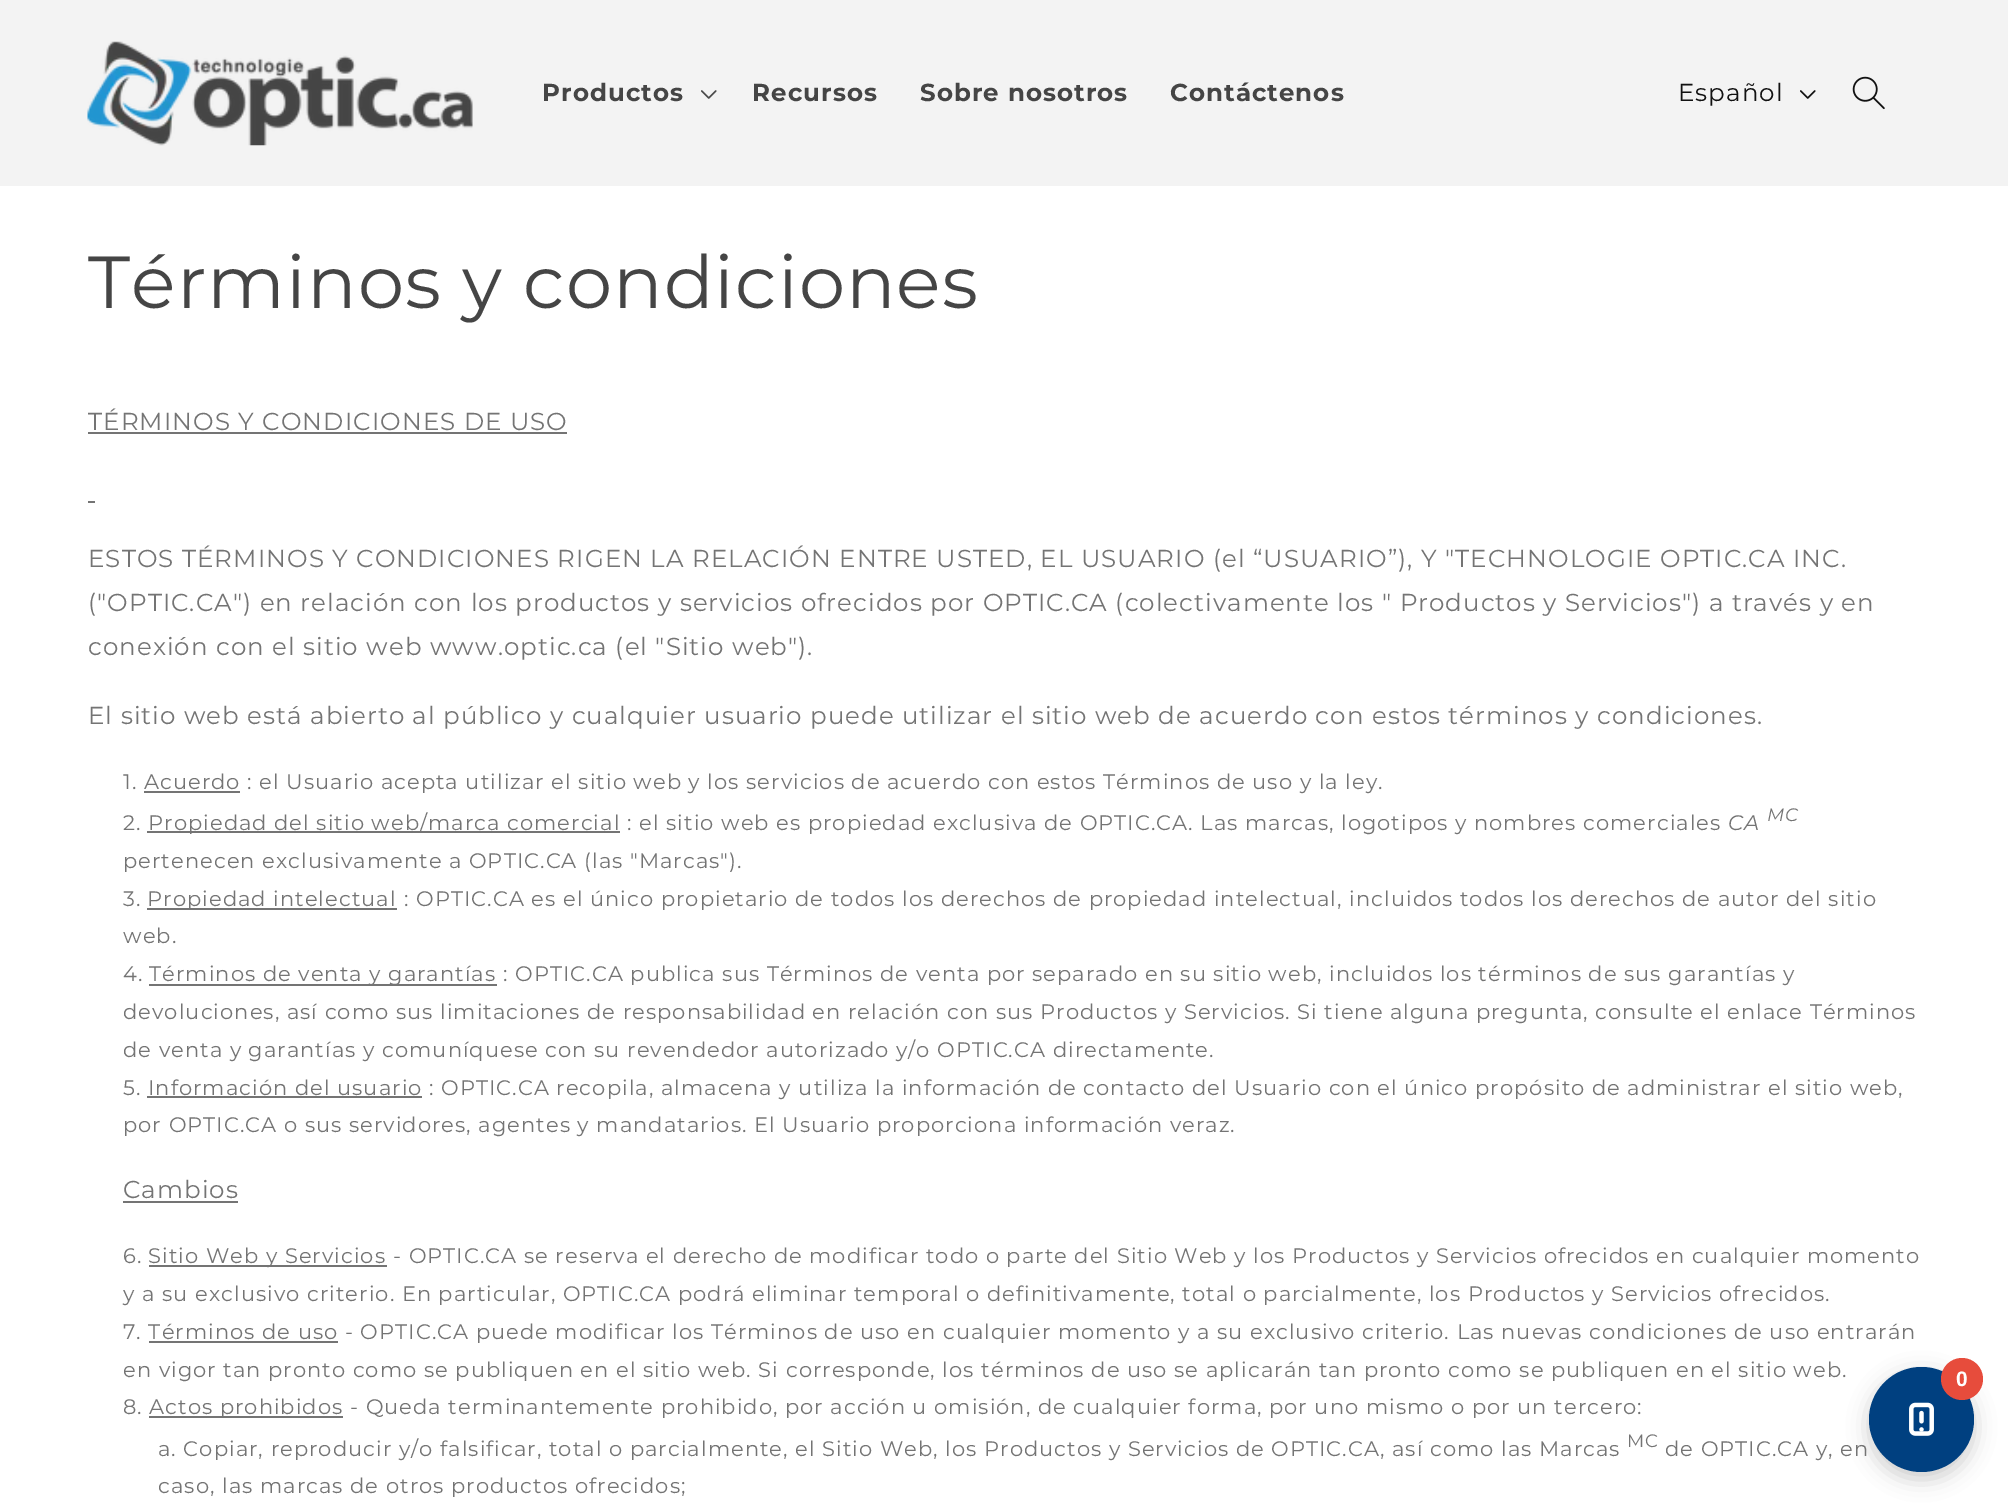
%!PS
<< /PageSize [2008 1506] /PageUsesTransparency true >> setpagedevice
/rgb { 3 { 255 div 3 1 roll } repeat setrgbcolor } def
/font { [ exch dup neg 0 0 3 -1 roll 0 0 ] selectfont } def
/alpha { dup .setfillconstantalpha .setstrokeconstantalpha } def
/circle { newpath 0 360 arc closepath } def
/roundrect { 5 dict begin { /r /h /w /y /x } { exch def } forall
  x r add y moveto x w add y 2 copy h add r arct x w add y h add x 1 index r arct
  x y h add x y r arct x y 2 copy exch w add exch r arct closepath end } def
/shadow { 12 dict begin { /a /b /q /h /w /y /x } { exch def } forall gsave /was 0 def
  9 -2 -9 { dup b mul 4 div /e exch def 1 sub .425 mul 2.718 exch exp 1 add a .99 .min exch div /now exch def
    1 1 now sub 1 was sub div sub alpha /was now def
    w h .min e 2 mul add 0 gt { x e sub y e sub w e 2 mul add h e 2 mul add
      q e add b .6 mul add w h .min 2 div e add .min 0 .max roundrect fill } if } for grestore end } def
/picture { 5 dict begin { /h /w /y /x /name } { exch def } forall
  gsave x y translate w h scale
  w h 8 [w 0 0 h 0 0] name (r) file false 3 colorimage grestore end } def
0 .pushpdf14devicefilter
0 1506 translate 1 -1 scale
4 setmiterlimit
255 255 255 rgb
0 0 2008 1506 rectfill
243 243 243 rgb
0 0 2008 186 rectfill
(img/1.rgb) 87 41 386 105 picture
(img/2.rgb) 701 90 16 9 picture
(img/3.rgb) 1800 90 16 9 picture
(img/4.rgb) 1852 76 33 34 picture
[
  [88 432 479 2 116 116 116]
  [88 501 7 2 116 116 116]
  [144 791 96 2 116 116 116]
  [147 831 473 2 116 116 116]
  [147 908 250 2 116 116 116]
  [149 984 348 2 116 116 116]
  [147 1096 275 2 116 116 116]
  [123 1201 115 2 116 116 116]
  [149 1265 238 2 116 116 116]
  [149 1341 189 2 116 116 116]
  [149 1416 194 2 116 116 116]
] { aload pop rgb rectfill } forall
0 0 0 rgb
1869 1374 105 105 52.5 10.5 0.2 shadow
0 64 128 rgb
1921.5 1419.5 52.5 circle fill
231 76 60 rgb
1962 1379 21 circle fill
(img/5.rgb) 1909 1402 25 34 picture
/Montserrat-Bold 24.5 font
69 69 69 rgb
542 101 moveto 1.05 0 (Productos) ashow
752 101 moveto 1.05 0 (Recursos) ashow
920 101 moveto 1.05 0 (Sobre nosotros) ashow
1170 101 moveto 1.05 0 (Contáctenos) ashow
/Montserrat-Regular 24.5 font
18 18 18 rgb
1678 101 moveto 1.05 0 (Español) ashow
/Montserrat-Regular 73.5 font
69 69 69 rgb
88 308 moveto 1.05 0 (Términos y condiciones) ashow
/Montserrat-Regular 24.5 font
116 116 116 rgb
88 430 moveto 1.05 0 (TÉRMINOS Y CONDICIONES DE USO) ashow
88 567 moveto 1.05 0 (ESTOS TÉRMINOS Y CONDICIONES RIGEN LA RELACIÓN ENTRE USTED, EL USUARIO \(el “USUARIO”\), Y "TECHNOLOGIE OPTIC.CA INC.) ashow
88 611 moveto 1.05 0 (\("OPTIC.CA"\) en relación con los productos y servicios ofrecidos por OPTIC.CA \(colectivamente los " Productos y Servicios"\) a través y en) ashow
88 655 moveto 1.05 0 (conexión con el sitio web www.optic.ca \(el "Sitio web"\).) ashow
88 724 moveto 1.05 0 (El sitio web está abierto al público y cualquier usuario puede utilizar el sitio web de acuerdo con estos términos y condiciones.) ashow
/Montserrat-Regular 21 font
123 789 moveto 1.05 0 (1. Acuerdo : el Usuario acepta utilizar el sitio web y los servicios de acuerdo con estos Términos de uso y la ley.) ashow
123 830 moveto 1.05 0 (2.) ashow
148 830 moveto 1.05 0 (Propiedad del sitio web/marca comercial) ashow
627 830 moveto 1.05 0 (: el sitio web es propiedad exclusiva de OPTIC.CA. Las marcas, logotipos y nombres comerciales) ashow
/Montserrat-Italic 21 font
1728 830 moveto 1.05 0 (CA) ashow
/Montserrat-Italic 18 font
1767 821 moveto 1.05 0 (MC) ashow
/Montserrat-Regular 21 font
123 868 moveto 1.05 0 (pertenecen exclusivamente a OPTIC.CA \(las "Marcas"\).) ashow
123 906 moveto 1.05 0 (3.) ashow
147 906 moveto 1.05 0 (Propiedad intelectual) ashow
404 906 moveto 1.05 0 (: OPTIC.CA es el único propietario de todos los derechos de propiedad intelectual, incluidos todos los derechos de autor del sitio) ashow
123 943 moveto 1.05 0 (web.) ashow
123 981 moveto 1.05 0 (4.) ashow
149 981 moveto 1.05 0 (Términos de venta y garantías) ashow
503 981 moveto 1.05 0 (: OPTIC.CA publica sus Términos de venta por separado en su sitio web, incluidos los términos de sus garantías y) ashow
123 1019 moveto 1.05 0 (devoluciones, así como sus limitaciones de responsabilidad en relación con sus Productos y Servicios. Si tiene alguna pregunta, consulte el enlace Términos) ashow
123 1057 moveto 1.05 0 (de venta y garantías y comuníquese con su revendedor autorizado y/o OPTIC.CA directamente.) ashow
123 1095 moveto 1.05 0 (5. Información del usuario : OPTIC.CA recopila, almacena y utiliza la información de contacto del Usuario con el único propósito de administrar el sitio web,) ashow
123 1132 moveto 1.05 0 (por OPTIC.CA o sus servidores, agentes y mandatarios. El Usuario proporciona información veraz.) ashow
/Montserrat-Regular 24.5 font
123 1198 moveto 1.05 0 (Cambios) ashow
/Montserrat-Regular 21 font
123 1263 moveto 1.05 0 (6.) ashow
148 1263 moveto 1.05 0 (Sitio Web y Servicios) ashow
393 1263 moveto 1.05 0 (- OPTIC.CA se reserva el derecho de modificar todo o parte del Sitio Web y los Productos y Servicios ofrecidos en cualquier momento) ashow
123 1301 moveto 1.05 0 (y a su exclusivo criterio. En particular, OPTIC.CA podrá eliminar temporal o definitivamente, total o parcialmente, los Productos y Servicios ofrecidos.) ashow
123 1339 moveto 1.05 0 (7. Términos de uso - OPTIC.CA puede modificar los Términos de uso en cualquier momento y a su exclusivo criterio. Las nuevas condiciones de uso entrarán) ashow
123 1377 moveto 1.05 0 (en vigor tan pronto como se publiquen en el sitio web. Si corresponde, los términos de uso se aplicarán tan pronto como se publiquen en el sitio web.) ashow
123 1414 moveto 1.05 0 (8.) ashow
149 1414 moveto 1.05 0 (Actos prohibidos) ashow
350 1414 moveto 1.05 0 (- Queda terminantemente prohibido, por acción u omisión, de cualquier forma, por uno mismo o por un tercero:) ashow
158 1456 moveto 1.05 0 (a. Copiar, reproducir y/o falsificar, total o parcialmente, el Sitio Web, los Productos y Servicios de OPTIC.CA, así como las Marcas) ashow
/Montserrat-Regular 18 font
1627 1447 moveto 1.05 0 (MC) ashow
/Montserrat-Regular 21 font
1665 1456 moveto 1.05 0 (de OPTIC.CA y, en) ashow
158 1493 moveto 1.05 0 (caso, las marcas de otros productos ofrecidos;) ashow
/LiberationSans-Bold 21 font
255 255 255 rgb
1956 1386 moveto (0) show
.poppdf14devicefilter showpage
